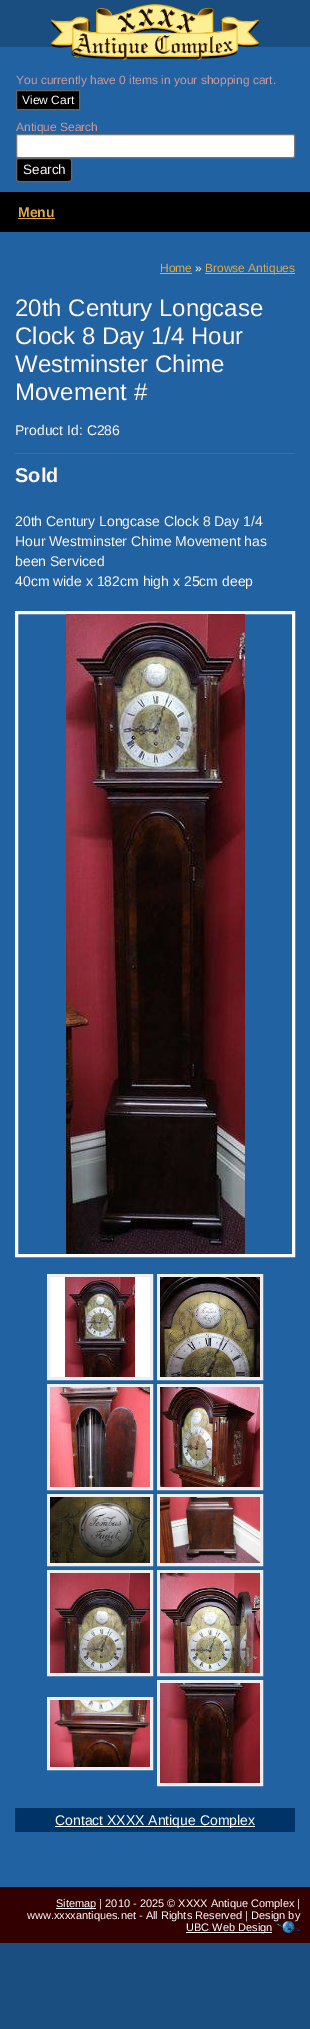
%!PS
<< /PageSize [310 2029] >> setpagedevice
/rgb { 3 { 255 div 3 1 roll } repeat setrgbcolor } def
/font { [ exch dup neg 0 0 3 -1 roll 0 0 ] selectfont } def
/roundrect { 5 dict begin { /r /h /w /y /x } { exch def } forall
  x r add y moveto x w add y 2 copy h add r arct x w add y h add x 1 index r arct
  x y h add x y r arct x y 2 copy exch w add exch r arct closepath end } def
/picture { 5 dict begin { /h /w /y /x /name } { exch def } forall
  gsave x y translate w h scale
  w h 8 [w 0 0 h 0 0] name (r) file false 3 colorimage grestore end } def
0 2029 translate 1 -1 scale
4 setmiterlimit
26 77 128 rgb
0 0 310 2029 rectfill
33 98 163 rgb
0 47 310 145 rectfill
(img/1.rgb) 51 4 208 56 picture
0 0 0 rgb
16.5 90.5 moveto 79.5 90.5 lineto 79.5 109.5 lineto 16.5 109.5 lineto closepath gsave fill grestore
102 102 102 rgb
stroke
255 255 255 rgb
16.5 134.5 278 23 1.5 roundrect gsave fill grestore
118 118 118 rgb
stroke
0 0 0 rgb
16.5 158.5 55 23 2.5 roundrect gsave fill grestore
102 102 102 rgb
stroke
[
  [0 232 310 1655 33 98 163]
  [0 192 310 40 0 0 0]
  [18 218 37 1 221 170 68]
  [160 273 32 1 221 170 68]
  [205 273 90 1 221 170 68]
  [15 453 280 1 102 102 102]
] { aload pop rgb rectfill } forall
255 255 255 rgb
3 setlinewidth
16.5 612.5 277 643 rectstroke
(img/2.rgb) 66 614 179 640 picture
48.5 1275.5 moveto 151.5 1275.5 lineto 151.5 1378.5 lineto 48.5 1378.5 lineto closepath gsave fill grestore
239 239 239 rgb
stroke
(img/3.rgb) 65 1277 70 100 picture
158.5 1275.5 103 103 rectstroke
(img/4.rgb) 160 1277 100 100 picture
48.5 1385.5 103 103 rectstroke
(img/5.rgb) 50 1387 100 100 picture
158.5 1385.5 103 103 rectstroke
(img/6.rgb) 160 1387 100 100 picture
48.5 1495.5 103 69 rectstroke
(img/7.rgb) 50 1497 100 66 picture
158.5 1495.5 103 69 rectstroke
(img/8.rgb) 160 1497 100 66 picture
48.5 1571.5 103 103 rectstroke
(img/9.rgb) 50 1573 100 100 picture
158.5 1571.5 103 103 rectstroke
(img/10.rgb) 160 1573 100 100 picture
48.5 1698.5 103 70 rectstroke
(img/11.rgb) 50 1700 100 67 picture
158.5 1681.5 103 103 rectstroke
(img/12.rgb) 160 1683 100 100 picture
[
  [15 1808 280 24 0 51 102]
  [55 1826 200 1 255 255 255]
  [0 1887 310 56 51 0 0]
  [56 1908 40 1 255 255 255]
  [186 1932 86 1 255 255 255]
] { aload pop rgb rectfill } forall
/LiberationSans-Regular 12 font
204 153 153 rgb
16 84 moveto (You currently have 0 items in your shopping cart.) show
255 255 255 rgb
22 104 moveto (View Cart) show
204 153 153 rgb
16 131 moveto (Antique Search) show
/LiberationSans-Regular 13.5 font
255 245 238 rgb
23 174 moveto (Search) show
/LiberationSans-Bold 14 font
221 170 68 rgb
18 217 moveto (Menu) show
/LiberationSans-Regular 12 font
160 272 moveto (Home) show
255 245 238 rgb
195 272 moveto (») show
221 170 68 rgb
205 272 moveto (Browse Antiques) show
/LiberationSans-Regular 24 font
255 245 238 rgb
[
  [(20th Century Longcase) 15 316]
  [(Clock 8 Day 1/4 Hour) 15 344]
  [(Westminster Chime) 15 372]
  [(Movement #) 15 400]
] { aload pop moveto show } forall
/LiberationSans-Regular 14 font
15 435 moveto (Product Id: C286) show
/LiberationSans-Bold 20 font
15 482 moveto (Sold) show
/LiberationSans-Regular 14 font
[
  [(20th Century Longcase Clock 8 Day 1/4) 15 526]
  [(Hour Westminster Chime Movement has) 15 546]
  [(been Serviced) 15 566]
  [(40cm wide x 182cm high x 25cm deep) 15 586]
] { aload pop moveto show } forall
255 255 255 rgb
55 1825 moveto (Contact XXXX Antique Complex) show
/LiberationSans-Regular 11 font
[
  [(Sitemap | 2010 - 2025 © XXXX Antique Complex |) 56 1907]
  [(www.xxxxantiques.net - All Rights Reserved | Design by) 27 1919]
  [(UBC Web Design) 186 1931]
] { aload pop moveto show } forall
(img/13.rgb) 277 1921 23 12 picture
showpage
